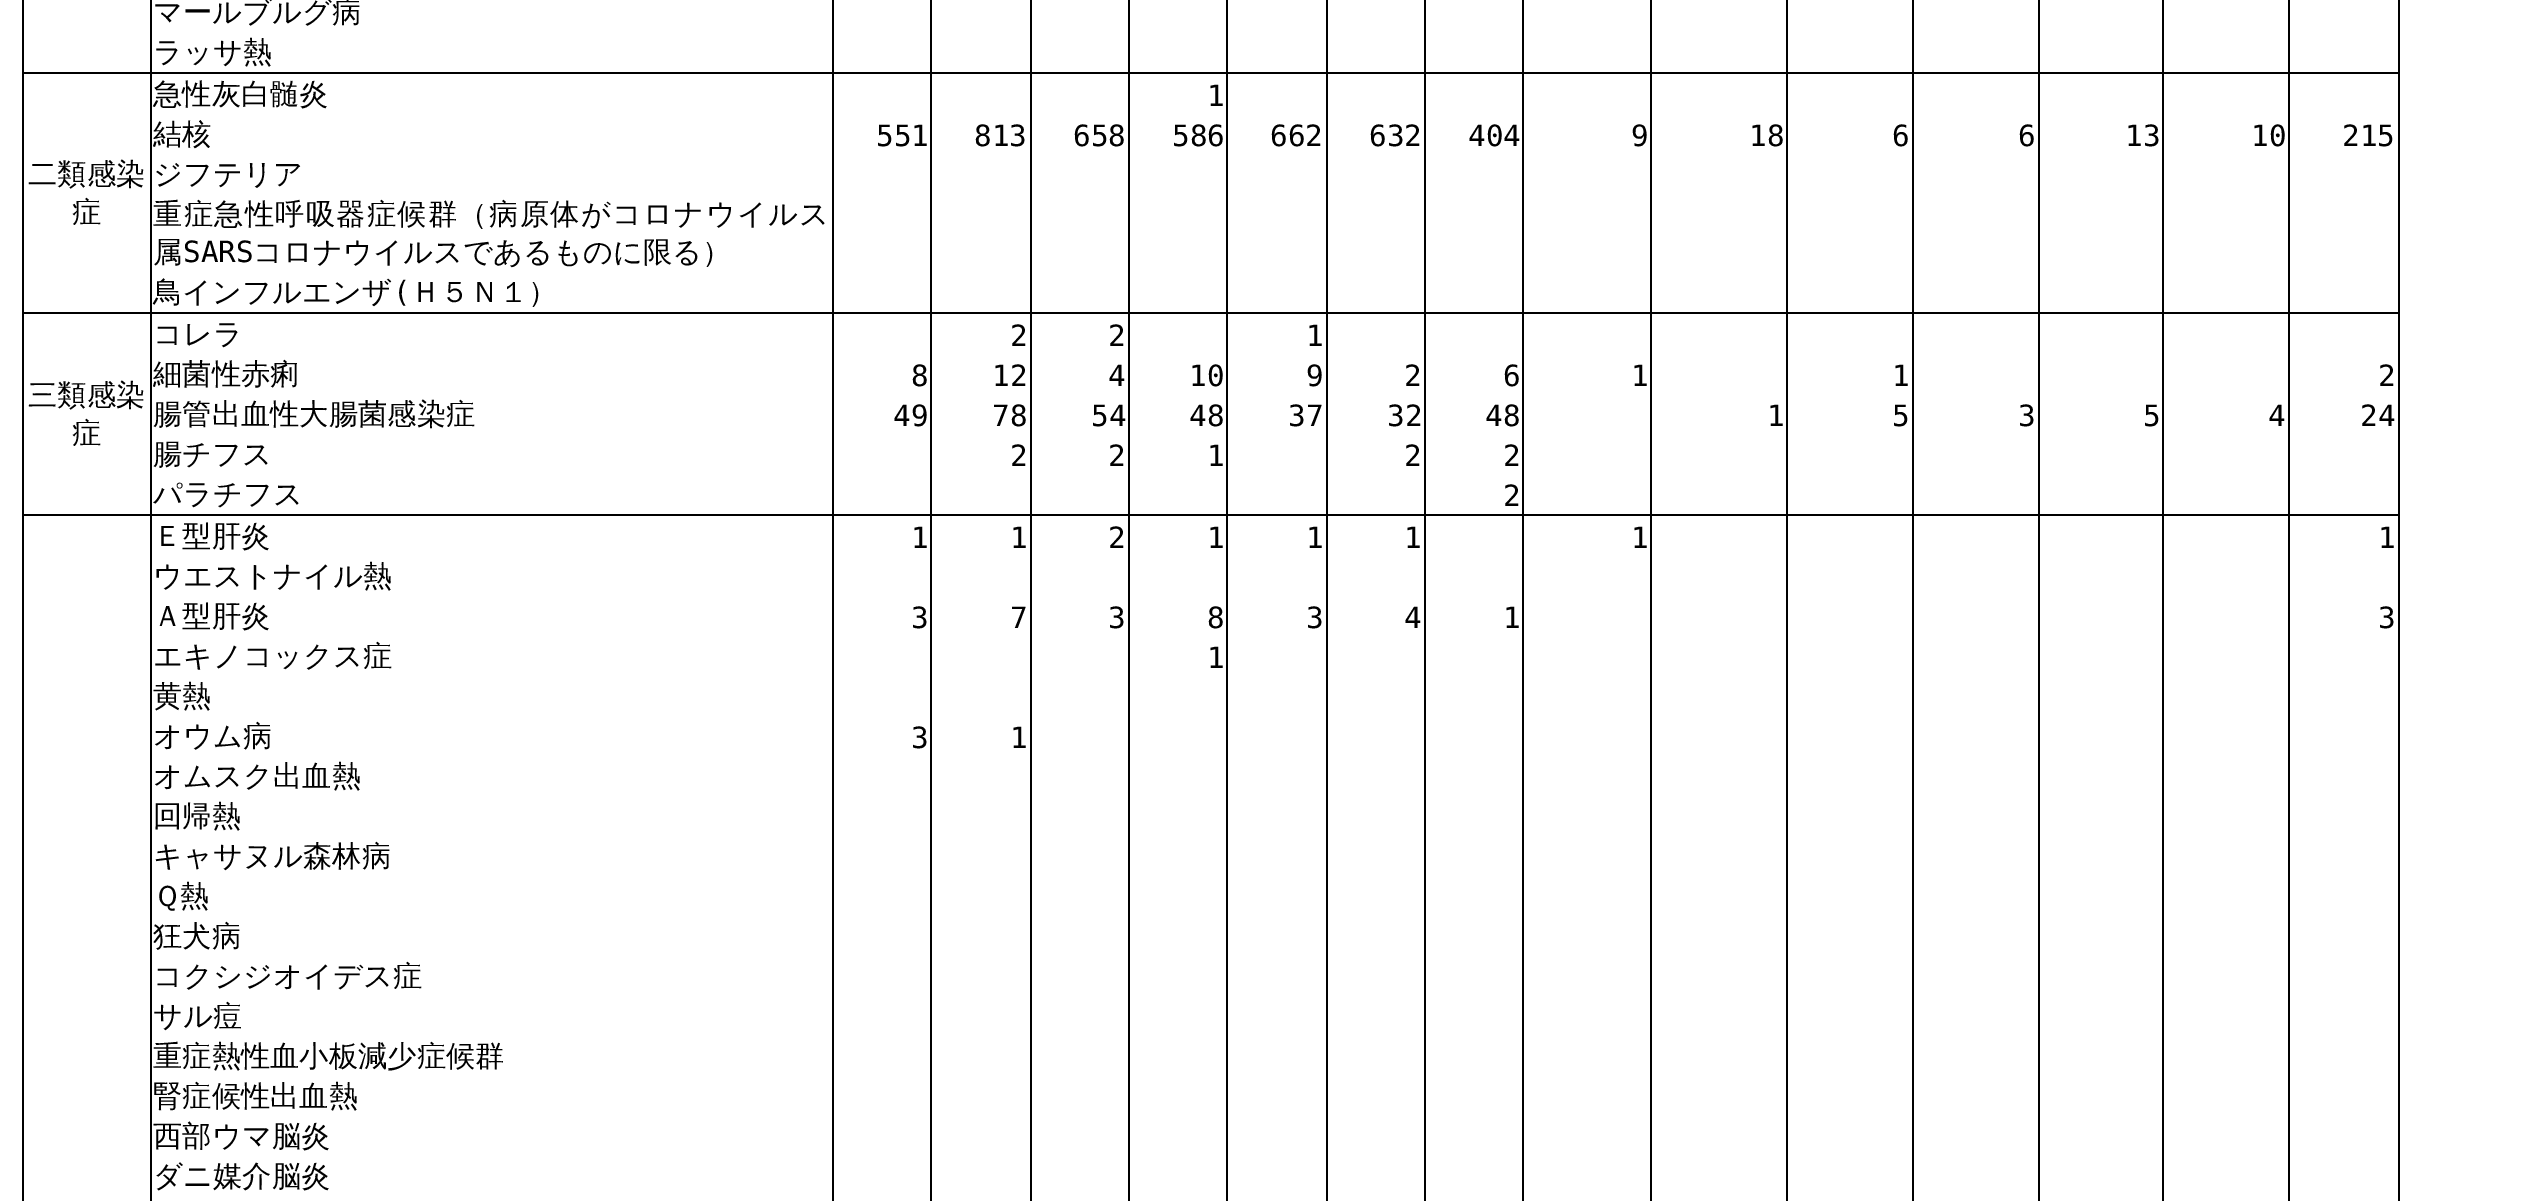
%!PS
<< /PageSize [2529 1201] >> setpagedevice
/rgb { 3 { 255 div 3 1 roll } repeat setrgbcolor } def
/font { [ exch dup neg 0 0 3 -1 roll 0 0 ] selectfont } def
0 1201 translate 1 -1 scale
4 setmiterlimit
255 255 255 rgb
0 0 2529 1201 rectfill
[
  [2398 0 2 1201 0 0 0]
  [2288 514 2 687 0 0 0]
  [2288 514 112 2 0 0 0]
  [2288 312 2 204 0 0 0]
  [2288 312 112 2 0 0 0]
  [2288 72 2 242 0 0 0]
  [2288 72 112 2 0 0 0]
  [2288 0 2 74 0 0 0]
  [2162 514 2 687 0 0 0]
  [2162 514 128 2 0 0 0]
  [2162 312 2 204 0 0 0]
  [2162 312 128 2 0 0 0]
  [2162 72 2 242 0 0 0]
  [2162 72 128 2 0 0 0]
  [2162 0 2 74 0 0 0]
  [2038 514 2 687 0 0 0]
  [2038 514 126 2 0 0 0]
  [2038 312 2 204 0 0 0]
  [2038 312 126 2 0 0 0]
  [2038 72 2 242 0 0 0]
  [2038 72 126 2 0 0 0]
  [2038 0 2 74 0 0 0]
  [1912 514 2 687 0 0 0]
  [1912 514 128 2 0 0 0]
  [1912 312 2 204 0 0 0]
  [1912 312 128 2 0 0 0]
  [1912 72 2 242 0 0 0]
  [1912 72 128 2 0 0 0]
  [1912 0 2 74 0 0 0]
  [1786 514 2 687 0 0 0]
  [1786 514 128 2 0 0 0]
  [1786 312 2 204 0 0 0]
  [1786 312 128 2 0 0 0]
  [1786 72 2 242 0 0 0]
  [1786 72 128 2 0 0 0]
  [1786 0 2 74 0 0 0]
  [1650 514 2 687 0 0 0]
  [1650 514 138 2 0 0 0]
  [1650 312 2 204 0 0 0]
  [1650 312 138 2 0 0 0]
  [1650 72 2 242 0 0 0]
  [1650 72 138 2 0 0 0]
  [1650 0 2 74 0 0 0]
  [1522 514 2 687 0 0 0]
  [1522 514 130 2 0 0 0]
  [1522 312 2 204 0 0 0]
  [1522 312 130 2 0 0 0]
  [1522 72 2 242 0 0 0]
  [1522 72 130 2 0 0 0]
  [1522 0 2 74 0 0 0]
  [1424 514 2 687 0 0 0]
  [1424 514 100 2 0 0 0]
  [1424 312 2 204 0 0 0]
  [1424 312 100 2 0 0 0]
  [1424 72 2 242 0 0 0]
  [1424 72 100 2 0 0 0]
  [1424 0 2 74 0 0 0]
  [1326 514 2 687 0 0 0]
  [1326 514 100 2 0 0 0]
  [1326 312 2 204 0 0 0]
  [1326 312 100 2 0 0 0]
  [1326 72 2 242 0 0 0]
  [1326 72 100 2 0 0 0]
  [1326 0 2 74 0 0 0]
  [1226 514 2 687 0 0 0]
  [1226 514 102 2 0 0 0]
  [1226 312 2 204 0 0 0]
  [1226 312 102 2 0 0 0]
  [1226 72 2 242 0 0 0]
  [1226 72 102 2 0 0 0]
  [1226 0 2 74 0 0 0]
  [1128 514 2 687 0 0 0]
  [1128 514 100 2 0 0 0]
  [1128 312 2 204 0 0 0]
  [1128 312 100 2 0 0 0]
  [1128 72 2 242 0 0 0]
  [1128 72 100 2 0 0 0]
  [1128 0 2 74 0 0 0]
  [1030 514 2 687 0 0 0]
  [1030 514 100 2 0 0 0]
  [1030 312 2 204 0 0 0]
  [1030 312 100 2 0 0 0]
  [1030 72 2 242 0 0 0]
  [1030 72 100 2 0 0 0]
  [1030 0 2 74 0 0 0]
  [930 514 2 687 0 0 0]
  [930 514 102 2 0 0 0]
  [930 312 2 204 0 0 0]
  [930 312 102 2 0 0 0]
  [930 72 2 242 0 0 0]
  [930 72 102 2 0 0 0]
  [930 0 2 74 0 0 0]
  [832 514 2 687 0 0 0]
  [832 514 100 2 0 0 0]
  [832 312 2 204 0 0 0]
  [832 312 100 2 0 0 0]
  [832 72 2 242 0 0 0]
  [832 72 100 2 0 0 0]
  [832 0 2 74 0 0 0]
  [150 514 2 687 0 0 0]
  [150 514 684 2 0 0 0]
  [150 312 2 204 0 0 0]
  [150 312 684 2 0 0 0]
  [150 72 2 242 0 0 0]
  [150 72 684 2 0 0 0]
  [150 0 2 74 0 0 0]
  [22 514 2 687 0 0 0]
  [22 514 130 2 0 0 0]
  [22 312 2 204 0 0 0]
  [22 312 130 2 0 0 0]
  [22 72 2 242 0 0 0]
  [22 72 130 2 0 0 0]
  [22 0 2 74 0 0 0]
] { aload pop rgb rectfill } forall
/WenQuanYiZenHei-Medium 29.3 font
[
  [(マールブルグ病) 153 22]
  [(ラッサ熱) 153 62]
  [(急性灰白髄炎) 153 104]
] { aload pop moveto show } forall
/DejaVuSansMono-Regular 29.3 font
1207 106 moveto (1) show
/WenQuanYiZenHei-Medium 29.3 font
[
  [(二類感染) 28 184]
  [(症) 72 222]
  [(結核) 153 144]
] { aload pop moveto show } forall
/DejaVuSansMono-Regular 29.3 font
[
  [(551) 876 146]
  [(813) 974 146]
  [(658) 1073 146]
  [(586) 1172 146]
  [(662) 1270 146]
  [(632) 1369 146]
  [(404) 1468 146]
  [(9) 1631 146]
  [(18) 1749 146]
  [(6) 1892 146]
  [(6) 2018 146]
  [(13) 2125 146]
  [(10) 2251 146]
  [(215) 2342 146]
] { aload pop moveto show } forall
/WenQuanYiZenHei-Medium 29.3 font
153 184 moveto (ジフテリア) show
153 224 moveto 1.25 0 (重症急性呼吸器症候群（病原体がコロナウイルス) ashow
153 262 moveto (属) show
/DejaVuSansMono-Regular 29.3 font
183 262 moveto (SARS) show
/WenQuanYiZenHei-Medium 29.3 font
253 262 moveto (コロナウイルスであるものに限る）) show
153 302 moveto (鳥インフルエンザ) show
/DejaVuSansMono-Regular 29.3 font
393 302 moveto (\() show
/WenQuanYiZenHei-Medium 29.3 font
411 302 moveto (Ｈ５Ｎ１）) show
153 344 moveto (コレラ) show
/DejaVuSansMono-Regular 29.3 font
[
  [(2) 1010 346]
  [(2) 1108 346]
  [(1) 1306 346]
] { aload pop moveto show } forall
/WenQuanYiZenHei-Medium 29.3 font
[
  [(三類感染) 28 405]
  [(症) 72 443]
  [(細菌性赤痢) 153 384]
] { aload pop moveto show } forall
/DejaVuSansMono-Regular 29.3 font
[
  [(8) 911 386]
  [(12) 992 386]
  [(4) 1108 386]
  [(10) 1189 386]
  [(9) 1306 386]
  [(2) 1404 386]
  [(6) 1503 386]
  [(1) 1631 386]
  [(1) 1892 386]
  [(2) 2378 386]
] { aload pop moveto show } forall
/WenQuanYiZenHei-Medium 29.3 font
153 424 moveto (腸管出血性大腸菌感染症) show
/DejaVuSansMono-Regular 29.3 font
[
  [(49) 893 426]
  [(78) 992 426]
  [(54) 1091 426]
  [(48) 1189 426]
  [(37) 1288 426]
  [(32) 1387 426]
  [(48) 1485 426]
  [(1) 1767 426]
  [(5) 1892 426]
  [(3) 2018 426]
  [(5) 2143 426]
  [(4) 2268 426]
  [(24) 2360 426]
] { aload pop moveto show } forall
/WenQuanYiZenHei-Medium 29.3 font
153 464 moveto (腸チフス) show
/DejaVuSansMono-Regular 29.3 font
[
  [(2) 1010 466]
  [(2) 1108 466]
  [(1) 1207 466]
  [(2) 1404 466]
  [(2) 1503 466]
] { aload pop moveto show } forall
/WenQuanYiZenHei-Medium 29.3 font
153 504 moveto (パラチフス) show
/DejaVuSansMono-Regular 29.3 font
1503 506 moveto (2) show
/WenQuanYiZenHei-Medium 29.3 font
153 546 moveto (Ｅ型肝炎) show
/DejaVuSansMono-Regular 29.3 font
[
  [(1) 911 548]
  [(1) 1010 548]
  [(2) 1108 548]
  [(1) 1207 548]
  [(1) 1306 548]
  [(1) 1404 548]
  [(1) 1631 548]
  [(1) 2378 548]
] { aload pop moveto show } forall
/WenQuanYiZenHei-Medium 29.3 font
153 586 moveto (ウエストナイル熱) show
153 626 moveto (Ａ型肝炎) show
/DejaVuSansMono-Regular 29.3 font
[
  [(3) 911 628]
  [(7) 1010 628]
  [(3) 1108 628]
  [(8) 1207 628]
  [(3) 1306 628]
  [(4) 1404 628]
  [(1) 1503 628]
  [(3) 2378 628]
] { aload pop moveto show } forall
/WenQuanYiZenHei-Medium 29.3 font
153 666 moveto (エキノコックス症) show
/DejaVuSansMono-Regular 29.3 font
1207 668 moveto (1) show
/WenQuanYiZenHei-Medium 29.3 font
153 706 moveto (黄熱) show
153 746 moveto (オウム病) show
/DejaVuSansMono-Regular 29.3 font
911 748 moveto (3) show
1010 748 moveto (1) show
/WenQuanYiZenHei-Medium 29.3 font
[
  [(オムスク出血熱) 153 786]
  [(回帰熱) 153 826]
  [(キャサヌル森林病) 153 866]
  [(Ｑ熱) 153 906]
  [(狂犬病) 153 946]
  [(コクシジオイデス症) 153 986]
  [(サル痘) 153 1026]
  [(重症熱性血小板減少症候群) 153 1066]
  [(腎症候性出血熱) 153 1106]
  [(西部ウマ脳炎) 153 1146]
  [(ダニ媒介脳炎) 153 1186]
] { aload pop moveto show } forall
showpage
